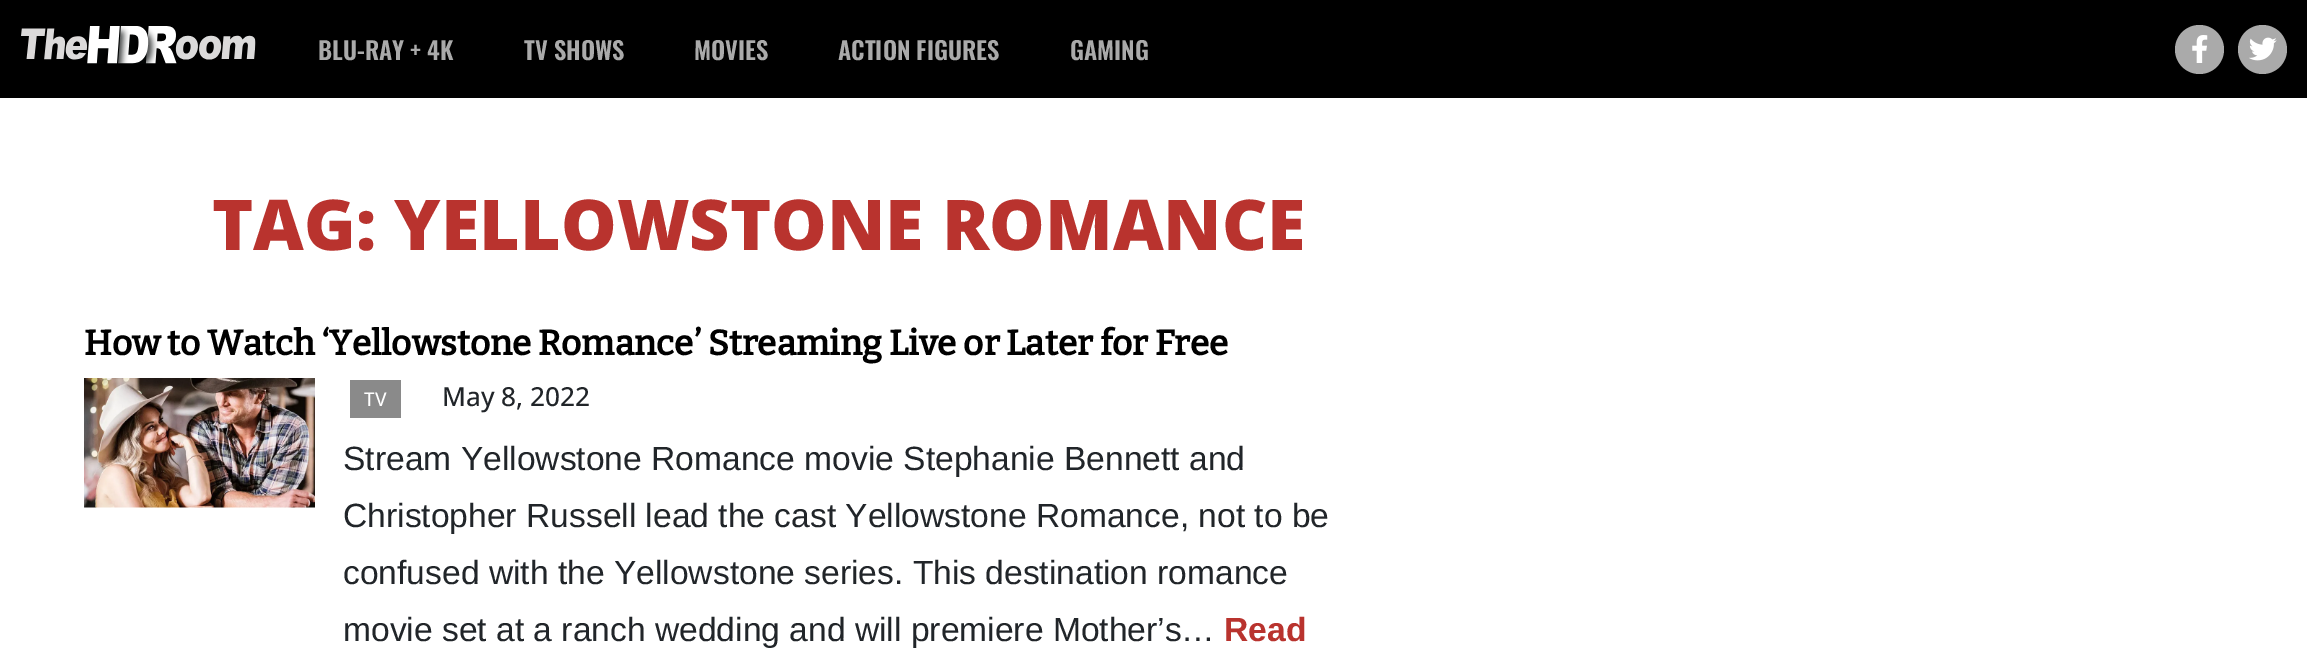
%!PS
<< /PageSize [2307 671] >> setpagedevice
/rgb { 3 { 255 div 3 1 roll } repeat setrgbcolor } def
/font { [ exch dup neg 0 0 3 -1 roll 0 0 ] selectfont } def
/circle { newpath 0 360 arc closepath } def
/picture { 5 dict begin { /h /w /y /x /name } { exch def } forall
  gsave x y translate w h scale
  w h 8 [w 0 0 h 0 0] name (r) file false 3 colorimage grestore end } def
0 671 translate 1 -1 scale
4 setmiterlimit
255 255 255 rgb
0 0 2307 671 rectfill
0 0 0 rgb
0 0 2307 98 rectfill
(img/1.rgb) 21 26 235 38 picture
170 170 170 rgb
2199.5 49.5 24.5 circle fill
(img/2.rgb) 2192 35 16 28 picture
2262.5 49.5 24.5 circle fill
(img/3.rgb) 2249 37 28 24 picture
(img/4.rgb) 84 378 231 130 picture
138 138 138 rgb
350 380 51 38 rectfill
/Oswald-SemiBold 24.5 font
170 170 170 rgb
[
  [(BLU-RAY + 4K) 318 60]
  [(TV SHOWS) 524 60]
  [(MOVIES) 694 60]
  [(ACTION FIGURES) 838 60]
  [(GAMING) 1070 60]
] { aload pop moveto show } forall
/OpenSans-ExtraBold 70 font
185 51 46 rgb
212 250 moveto (TAG: YELLOWSTONE ROMANCE) show
/Bitter-Bold 35 font
0 0 0 rgb
84 355 moveto (How to Watch ‘Yellowstone Romance’ Streaming Live or Later for Free) show
/OpenSans-Medium 19 font
255 255 255 rgb
364 406 moveto (TV) show
/OpenSans-Medium 26.25 font
33 37 41 rgb
442 406 moveto (May 8, 2022) show
/LiberationSans-Regular 33.6 font
[
  [(Stream Yellowstone Romance movie Stephanie Bennett and) 343 470]
  [(Christopher Russell lead the cast Yellowstone Romance, not to be) 343 527]
  [(confused with the Yellowstone series. This destination romance) 343 584]
  [(movie set at a ranch wedding and will premiere Mother’s…) 343 641]
] { aload pop moveto show } forall
/LiberationSans-Bold 33.6 font
185 51 46 rgb
1224 641 moveto (Read) show
showpage
